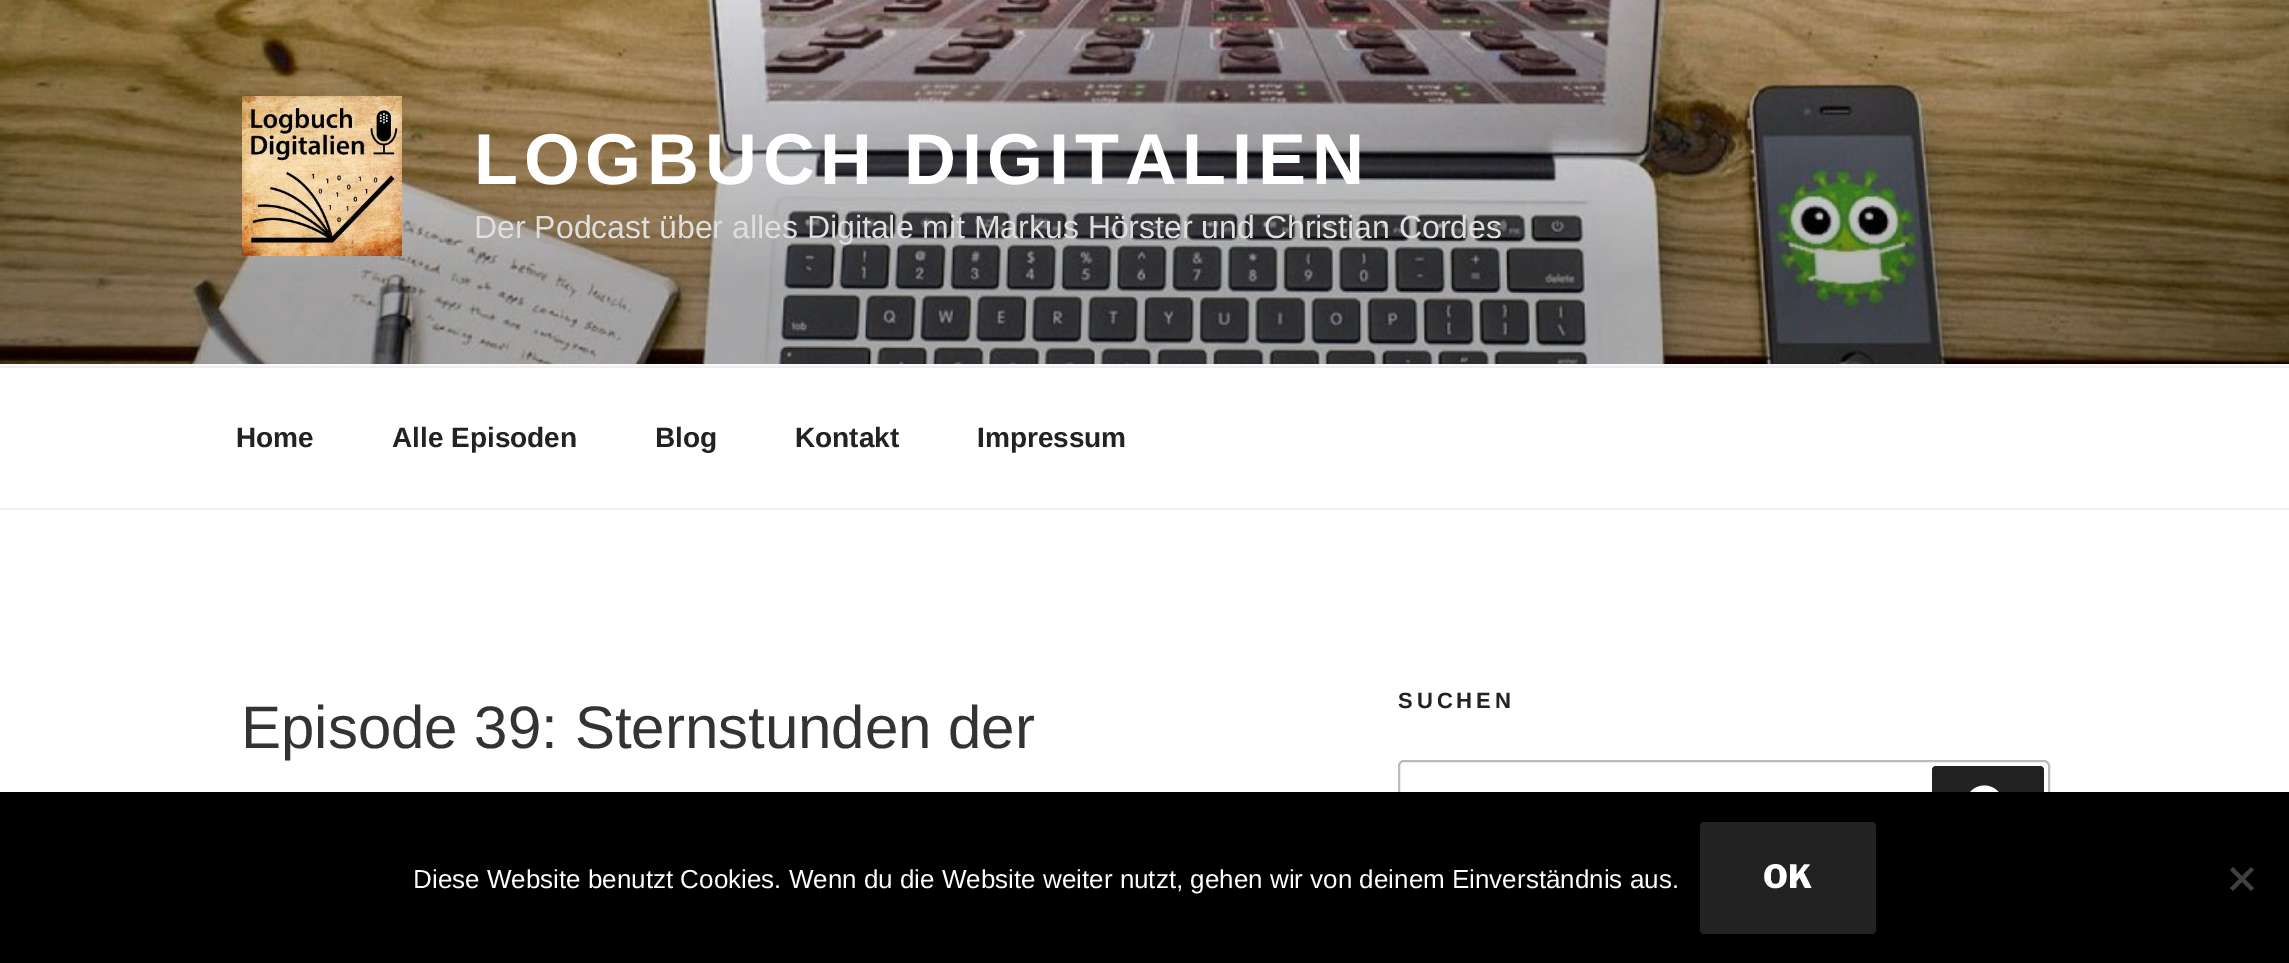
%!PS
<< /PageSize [2289 963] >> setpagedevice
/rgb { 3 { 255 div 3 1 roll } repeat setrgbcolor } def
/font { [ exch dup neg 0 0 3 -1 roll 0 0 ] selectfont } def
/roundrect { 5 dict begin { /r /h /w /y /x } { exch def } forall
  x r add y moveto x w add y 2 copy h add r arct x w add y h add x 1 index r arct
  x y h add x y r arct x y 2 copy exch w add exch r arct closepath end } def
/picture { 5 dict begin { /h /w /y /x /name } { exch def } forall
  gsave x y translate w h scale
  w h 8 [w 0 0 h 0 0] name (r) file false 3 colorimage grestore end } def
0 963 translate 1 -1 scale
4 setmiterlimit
255 255 255 rgb
0 0 2289 963 rectfill
250 250 250 rgb
0 364 2289 2 rectfill
(img/1.rgb) 0 0 2289 364 picture
(img/2.rgb) 242 96 160 160 picture
238 238 238 rgb
0 366 2289 2 rectfill
0 508 2289 2 rectfill
187 187 187 rgb
2 setlinewidth
1399 761 650 96 5 roundrect stroke
34 34 34 rgb
1932 766 112 86 4 roundrect fill
(img/3.rgb) 1970 785 29 7 picture
0 0 0 rgb
0 792 2289 171 rectfill
34 34 34 rgb
1700 822 176 112 4 roundrect fill
64 64 64 rgb
2251 867 moveto 2254 870 lineto 2233 891 lineto 2230 888 lineto closepath fill
2230 870 moveto 2233 867 lineto 2254 888 lineto 2251 891 lineto closepath fill
/LiberationSans-Bold 72 font
255 255 255 rgb
474 184 moveto 5.75 0 (LOGBUCH DIGITALIEN) ashow
/LiberationSans-Regular 32 font
224 223 222 rgb
474 238 moveto (Der Podcast über alles Digitale mit Markus Hörster und Christian Cordes) show
/LiberationSans-Bold 28 font
34 34 34 rgb
[
  [(Home) 236 447]
  [(Alle Episoden) 392 447]
  [(Blog) 655 447]
  [(Kontakt) 795 447]
  [(Impressum) 977 447]
] { aload pop moveto show } forall
/LiberationSans-Bold 22 font
1398 708 moveto 4 0 (SUCHEN) ashow
/LiberationSans-Regular 60 font
51 51 51 rgb
241 748 moveto (Episode 39: Sternstunden der) show
/LiberationSans-Regular 26 font
255 255 255 rgb
413 888 moveto (Diese Website benutzt Cookies. Wenn du die Website weiter nutzt, gehen wir von deinem Einverständnis aus.) show
/LibreFranklin-Thin 32 font
1763 888 moveto (OK) show
showpage
